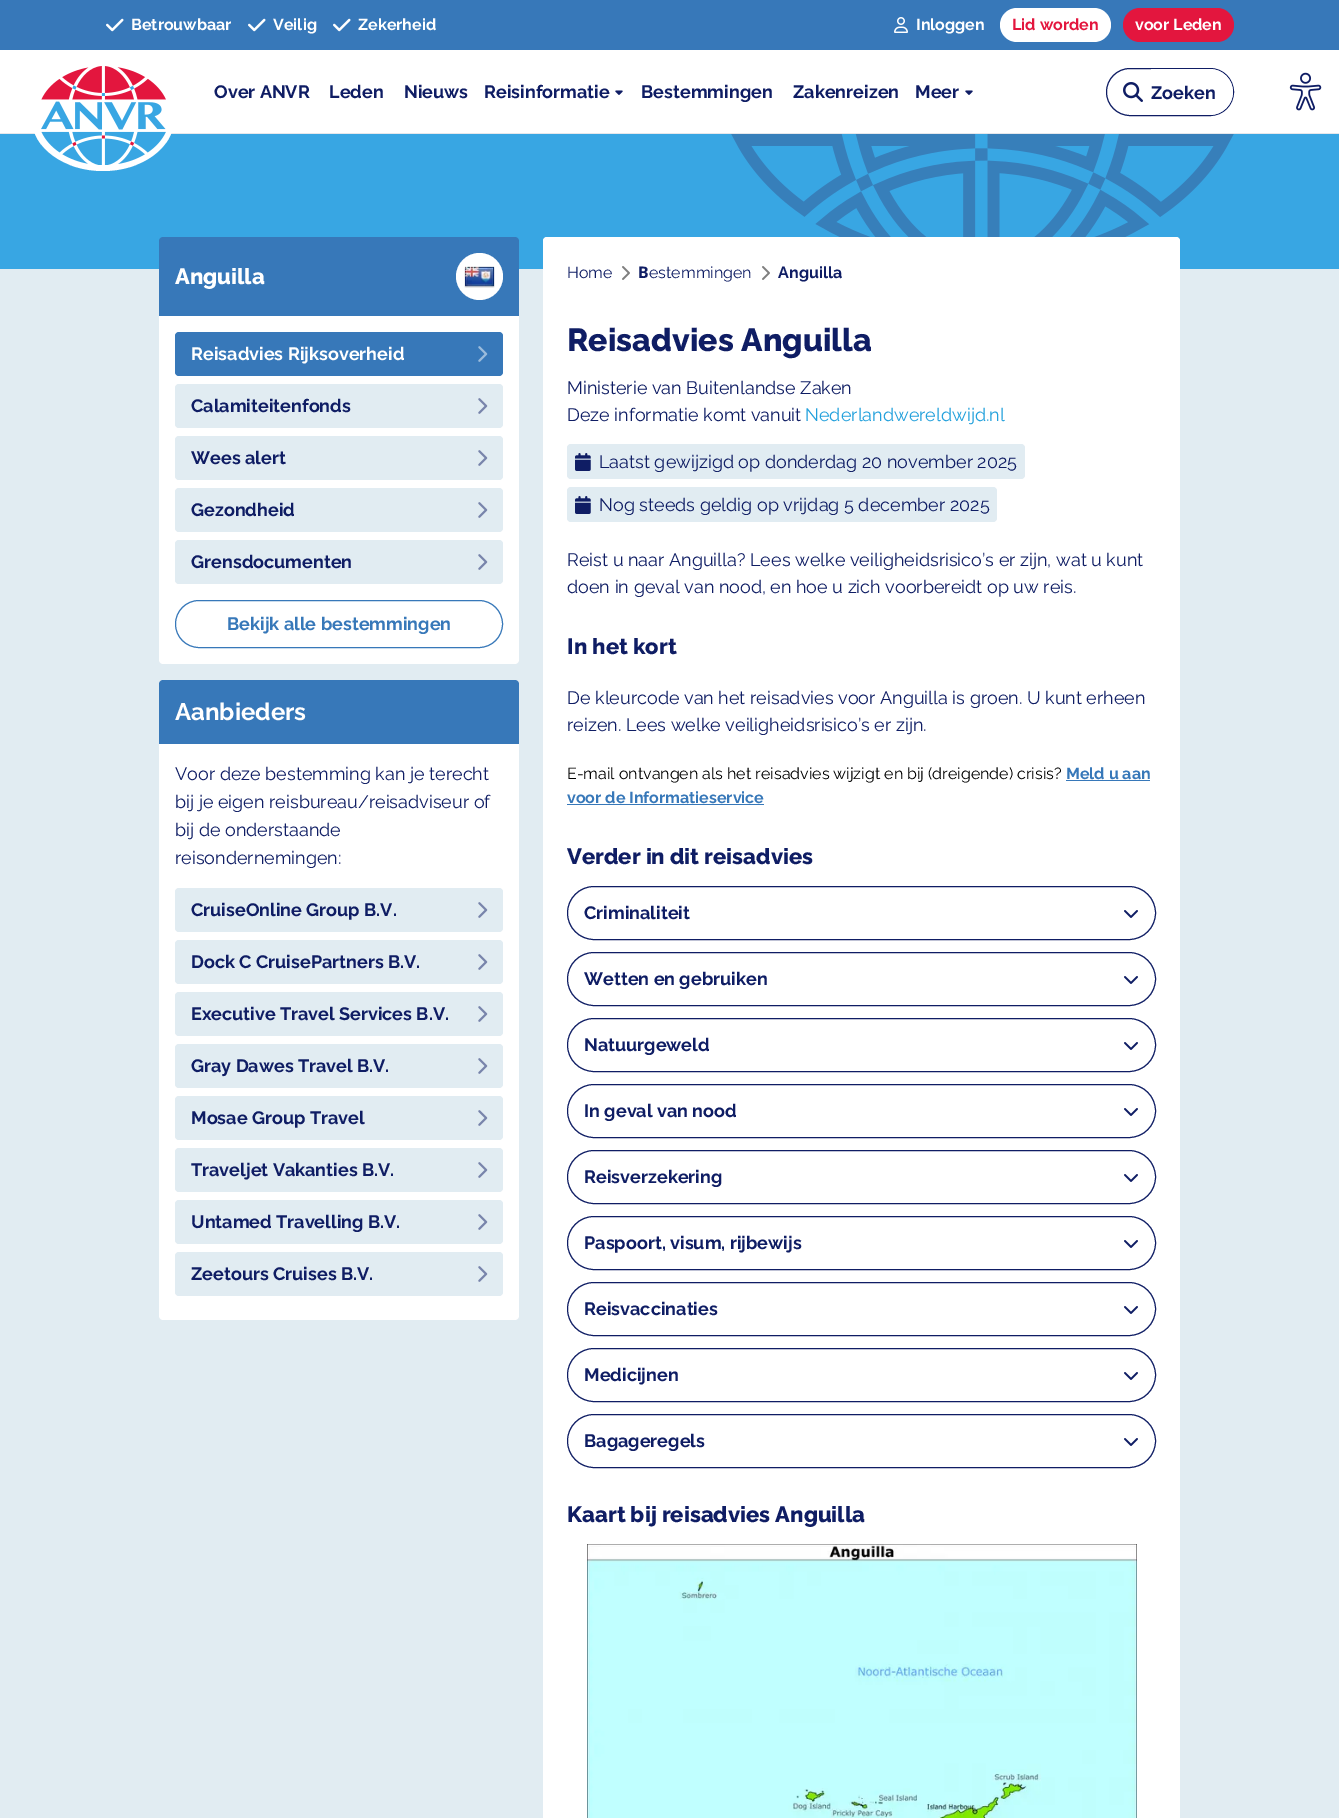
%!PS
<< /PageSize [1339 1818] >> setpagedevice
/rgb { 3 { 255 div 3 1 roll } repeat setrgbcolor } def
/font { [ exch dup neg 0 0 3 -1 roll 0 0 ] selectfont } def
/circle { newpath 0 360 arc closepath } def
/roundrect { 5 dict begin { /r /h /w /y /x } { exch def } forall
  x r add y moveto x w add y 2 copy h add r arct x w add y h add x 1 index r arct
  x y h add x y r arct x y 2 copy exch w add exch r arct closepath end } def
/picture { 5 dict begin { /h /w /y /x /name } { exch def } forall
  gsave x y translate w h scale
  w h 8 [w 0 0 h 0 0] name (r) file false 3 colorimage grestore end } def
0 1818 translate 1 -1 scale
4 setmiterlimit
255 255 255 rgb
0 0 1339 1818 rectfill
55 120 185 rgb
0 0 1339 50 rectfill
(img/1.rgb) 106 18 18 14 picture
(img/1.rgb) 248 18 18 14 picture
(img/1.rgb) 333 18 18 14 picture
(img/2.rgb) 894 17 14 16 picture
255 255 255 rgb
1000 8 111 34 17 roundrect fill
227 22 62 rgb
1123 8 111 34 17 roundrect fill
229 231 235 rgb
0 133 1339 1 rectfill
56 166 227 rgb
0 134 1339 135 rectfill
255 255 255 rgb
32 119 moveto 174 119 lineto 174 148 142 171 103 171 curveto 64 171 32 148 32 119 curveto closepath fill
(img/3.rgb) 41 66 125 99 picture
(img/4.rgb) 615 90 8 5 picture
(img/4.rgb) 965 90 8 5 picture
15 29 100 rgb
1106.5 68.5 127 47 23.5 roundrect stroke
(img/5.rgb) 1123 82 20 20 picture
255 255 255 rgb
1151 69 moveto 1210 69 lineto 1222.5 69 1233 79.5 1233 92 curveto 1233 104.5 1222.5 115 1210 115 curveto 1151 115 lineto closepath fill
(img/6.rgb) 1289 72 33 39 picture
(img/7.rgb) 731 134 503 103 picture
225 236 242 rgb
0 269 1339 1549 rectfill
55 120 185 rgb
163 237 moveto 515 237 lineto 517 237 519 239 519 241 curveto 519 316 lineto 159 316 lineto 159 241 lineto 159 239 161 237 163 237 curveto closepath fill
255 255 255 rgb
479.5 276.5 23.5 circle fill
(img/8.rgb) 464 266 31 22 picture
159 316 moveto 519 316 lineto 519 660 lineto 519 662 517 664 515 664 curveto 163 664 lineto 161 664 159 662 159 660 curveto closepath fill
55 120 185 rgb
175 332 328 44 4 roundrect fill
(img/9.rgb) 478 346 10 16 picture
225 236 242 rgb
175 384 328 44 4 roundrect fill
(img/10.rgb) 478 398 10 16 picture
175 436 328 44 4 roundrect fill
(img/10.rgb) 478 450 10 16 picture
175 488 328 44 4 roundrect fill
(img/10.rgb) 478 502 10 16 picture
175 540 328 44 4 roundrect fill
(img/10.rgb) 478 554 10 16 picture
55 120 185 rgb
175.5 600.5 327 47 23.5 roundrect stroke
163 680 moveto 515 680 lineto 517 680 519 682 519 684 curveto 519 744 lineto 159 744 lineto 159 684 lineto 159 682 161 680 163 680 curveto closepath fill
255 255 255 rgb
159 744 moveto 519 744 lineto 519 1316 lineto 519 1318 517 1320 515 1320 curveto 163 1320 lineto 161 1320 159 1318 159 1316 curveto closepath fill
225 236 242 rgb
175 888 328 44 4 roundrect fill
(img/10.rgb) 478 902 10 16 picture
175 940 328 44 4 roundrect fill
(img/10.rgb) 478 954 10 16 picture
175 992 328 44 4 roundrect fill
(img/10.rgb) 478 1006 10 16 picture
175 1044 328 44 4 roundrect fill
(img/10.rgb) 478 1058 10 16 picture
175 1096 328 44 4 roundrect fill
(img/10.rgb) 478 1110 10 16 picture
175 1148 328 44 4 roundrect fill
(img/10.rgb) 478 1162 10 16 picture
175 1200 328 44 4 roundrect fill
(img/10.rgb) 478 1214 10 16 picture
175 1252 328 44 4 roundrect fill
(img/10.rgb) 478 1266 10 16 picture
255 255 255 rgb
547 237 moveto 1176 237 lineto 1178 237 1180 239 1180 241 curveto 1180 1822 lineto 543 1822 lineto 543 241 lineto 543 239 545 237 547 237 curveto closepath fill
547 237 moveto 1176 237 lineto 1178 237 1180 239 1180 241 curveto 1180 297 lineto 543 297 lineto 543 241 lineto 543 239 545 237 547 237 curveto closepath fill
(img/11.rgb) 622 266 8 14 picture
(img/11.rgb) 762 266 8 14 picture
225 236 242 rgb
567 444 458 35 4 roundrect fill
(img/12.rgb) 575 453 16 18 picture
567 487 430 35 4 roundrect fill
(img/12.rgb) 575 496 16 18 picture
55 120 185 rgb
1066 780 84 1 rectfill
567 804 197 1 rectfill
15 29 100 rgb
567.5 886.5 588 53 26.5 roundrect stroke
(img/13.rgb) 1124 910 14 8 picture
567.5 952.5 588 53 26.5 roundrect stroke
(img/13.rgb) 1124 976 14 8 picture
567.5 1018.5 588 53 26.5 roundrect stroke
(img/13.rgb) 1124 1042 14 8 picture
567.5 1084.5 588 53 26.5 roundrect stroke
(img/13.rgb) 1124 1108 14 8 picture
567.5 1150.5 588 53 26.5 roundrect stroke
(img/13.rgb) 1124 1174 14 8 picture
567.5 1216.5 588 53 26.5 roundrect stroke
(img/13.rgb) 1124 1240 14 8 picture
567.5 1282.5 588 53 26.5 roundrect stroke
(img/13.rgb) 1124 1306 14 8 picture
567.5 1348.5 588 53 26.5 roundrect stroke
(img/13.rgb) 1124 1372 14 8 picture
567.5 1414.5 588 53 26.5 roundrect stroke
(img/13.rgb) 1124 1438 14 8 picture
(img/14.rgb) 587 1544 550 274 picture
/Raleway-Bold 16 font
255 255 255 rgb
[
  [(Betrouwbaar) 131 30]
  [(Veilig) 273 30]
  [(Zekerheid) 358 30]
  [(Inloggen) 916 30]
] { aload pop moveto show } forall
227 22 62 rgb
1012 30 moveto (Lid worden) show
255 255 255 rgb
1135 30 moveto (voor Leden) show
/Raleway-Bold 18 font
15 29 100 rgb
[
  [(Over ANVR) 214 98]
  [(Leden) 329 98]
  [(Nieuws) 404 98]
  [(Reisinformatie) 484 98]
  [(Bestemmingen) 641 98]
  [(Zakenreizen) 793 98]
  [(Meer) 915 98]
  [(Zoeken) 1151 99]
] { aload pop moveto show } forall
/Raleway-ExtraBold 22 font
255 255 255 rgb
175 284 moveto (Anguilla) show
/Raleway-Bold 18 font
191 360 moveto (Reisadvies Rijksoverheid) show
15 29 100 rgb
[
  [(Calamiteitenfonds) 191 412]
  [(Wees alert) 191 464]
  [(Gezondheid) 191 516]
  [(Grensdocumenten) 191 568]
] { aload pop moveto show } forall
55 120 185 rgb
227 630 moveto (Bekijk alle bestemmingen) show
/Raleway-Bold 24 font
255 255 255 rgb
175 720 moveto (Aanbieders) show
/Raleway-Regular 18 font
15 29 100 rgb
[
  [(Voor deze bestemming kan je terecht) 175 780]
  [(bij je eigen reisbureau/reisadviseur of) 175 808]
  [(bij de onderstaande) 175 836]
  [(reisondernemingen:) 175 864]
] { aload pop moveto show } forall
/Raleway-Bold 18 font
[
  [(CruiseOnline Group B.V.) 191 916]
  [(Dock C CruisePartners B.V.) 191 968]
  [(Executive Travel Services B.V.) 191 1020]
  [(Gray Dawes Travel B.V.) 191 1072]
  [(Mosae Group Travel) 191 1124]
  [(Traveljet Vakanties B.V.) 191 1176]
  [(Untamed Travelling B.V.) 191 1228]
  [(Zeetours Cruises B.V.) 191 1280]
] { aload pop moveto show } forall
/Raleway-Regular 16 font
567 278 moveto (Home) show
/NotoSans-Bold 16 font
638 278 moveto (B) show
/Raleway-Regular 16 font
649 278 moveto (estemmingen) show
/NotoSans-SemiBold 16 font
778 278 moveto (A) show
/Raleway-Bold 16 font
789 278 moveto (nguilla) show
/Raleway-ExtraBold 32 font
567 351 moveto (Reisadvies Anguilla) show
/Raleway-Regular 18 font
567 394 moveto (Ministerie van Buitenlandse Zaken) show
567 421 moveto (Deze informatie komt vanuit) show
33 160 220 rgb
805 421 moveto (Nederlandwereldwijd.nl) show
15 29 100 rgb
[
  [(Laatst gewijzigd op donderdag 20 november 2025) 599 468]
  [(Nog steeds geldig op vrijdag 5 december 2025) 599 511]
  [(Reist u naar Anguilla? Lees welke veiligheidsrisico’s er zijn, wat u kunt) 567 566]
  [(doen in geval van nood, en hoe u zich voorbereidt op uw reis.) 567 593]
] { aload pop moveto show } forall
/Raleway-ExtraBold 22 font
567 654 moveto (In het kort) show
/Raleway-Regular 18 font
567 704 moveto (De kleurcode van het reisadvies voor Anguilla is groen. U kunt erheen) show
567 731 moveto (reizen. Lees welke veiligheidsrisico’s er zijn.) show
/Raleway-Regular 16 font
0 0 0 rgb
567 779 moveto (E-mail ontvangen als het reisadvies wijzigt en bij \(dreigende\) crisis?) show
/Raleway-Bold 16 font
55 120 185 rgb
1066 779 moveto (Meld u aan) show
567 803 moveto (voor de Informatieservice) show
/Raleway-ExtraBold 22 font
15 29 100 rgb
567 864 moveto (Verder in dit reisadvies) show
/Raleway-Bold 18 font
[
  [(Criminaliteit) 584 919]
  [(Wetten en gebruiken) 584 985]
  [(Natuurgeweld) 584 1051]
  [(In geval van nood) 584 1117]
  [(Reisverzekering) 584 1183]
  [(Paspoort, visum, rijbewijs) 584 1249]
  [(Reisvaccinaties) 584 1315]
  [(Medicijnen) 584 1381]
  [(Bagageregels) 584 1447]
] { aload pop moveto show } forall
/Raleway-ExtraBold 22 font
567 1522 moveto (Kaart bij reisadvies Anguilla) show
showpage
